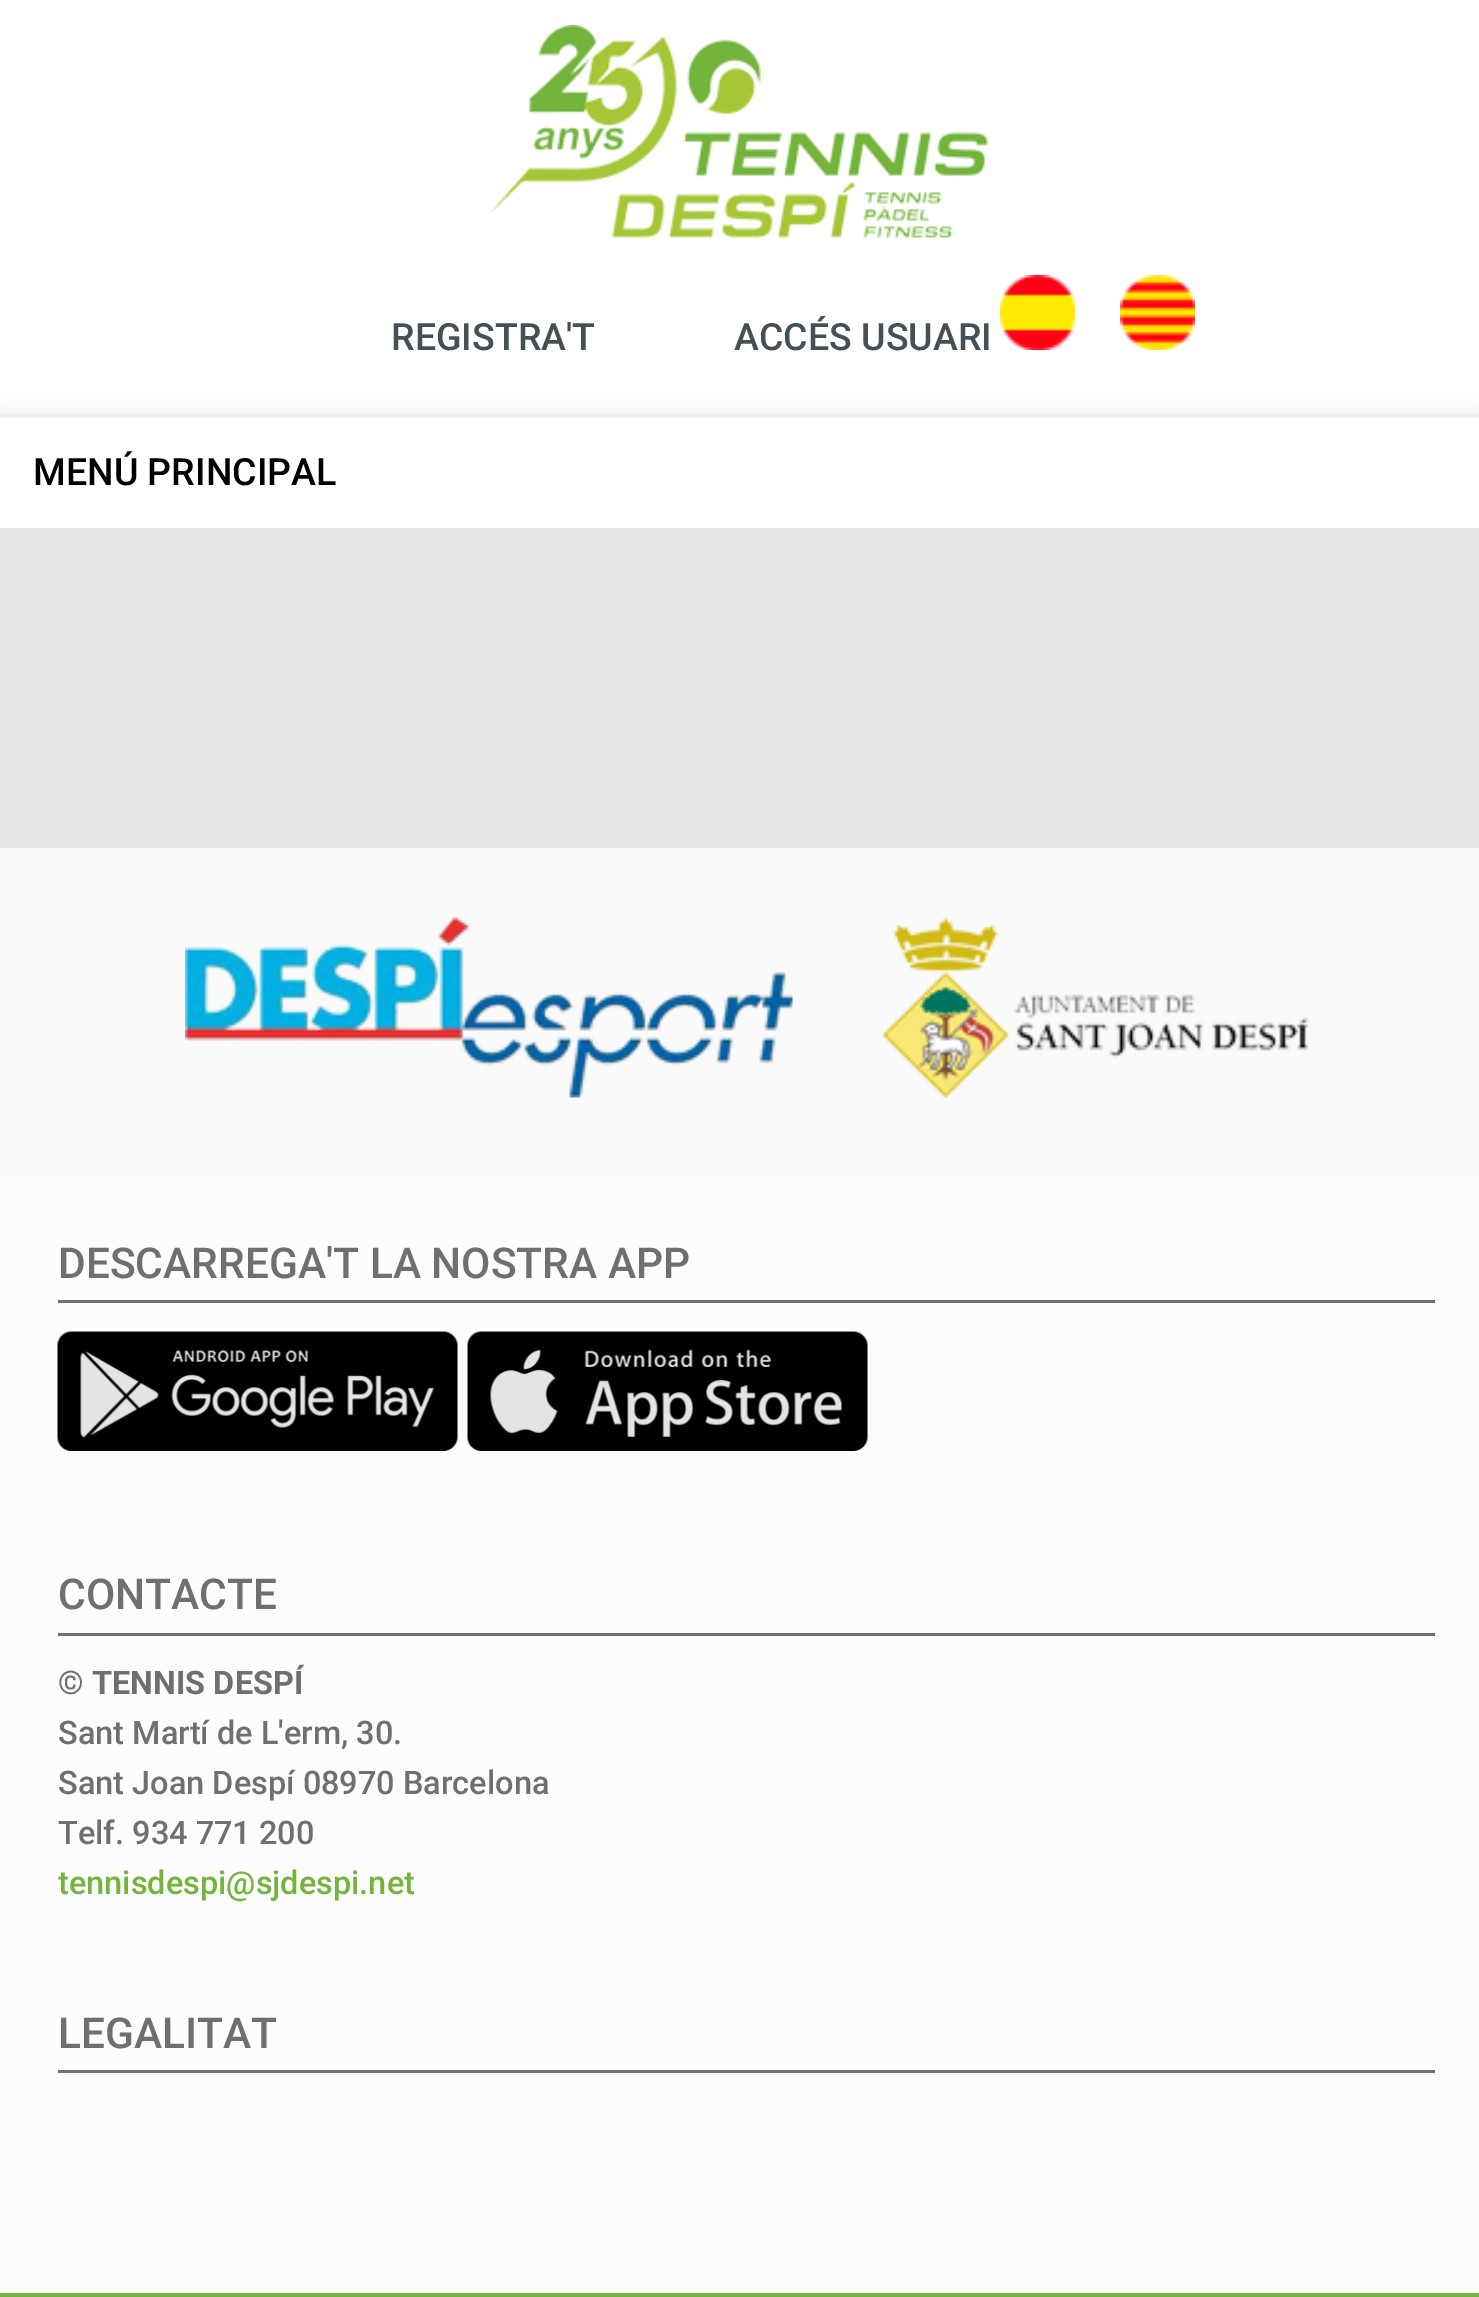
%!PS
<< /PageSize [1479 2297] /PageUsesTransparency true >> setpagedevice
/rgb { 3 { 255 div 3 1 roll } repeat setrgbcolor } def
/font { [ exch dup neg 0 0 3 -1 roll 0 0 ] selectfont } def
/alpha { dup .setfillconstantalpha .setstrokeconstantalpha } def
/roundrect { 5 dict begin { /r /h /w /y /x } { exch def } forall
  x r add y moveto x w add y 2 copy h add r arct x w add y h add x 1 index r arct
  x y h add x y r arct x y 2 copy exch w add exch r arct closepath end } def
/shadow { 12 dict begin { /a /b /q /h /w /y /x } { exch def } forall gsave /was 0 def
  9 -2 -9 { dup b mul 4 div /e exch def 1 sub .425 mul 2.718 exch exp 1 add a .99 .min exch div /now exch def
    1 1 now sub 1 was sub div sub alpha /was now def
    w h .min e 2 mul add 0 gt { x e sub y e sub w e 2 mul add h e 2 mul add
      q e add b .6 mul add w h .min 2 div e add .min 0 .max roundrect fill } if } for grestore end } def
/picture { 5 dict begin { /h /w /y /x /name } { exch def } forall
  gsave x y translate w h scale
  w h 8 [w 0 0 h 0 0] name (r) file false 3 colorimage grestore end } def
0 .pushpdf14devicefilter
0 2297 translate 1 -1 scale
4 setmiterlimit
231 231 231 rgb
0 0 1479 2297 rectfill
255 255 255 rgb
0 0 1479 418 rectfill
(img/1.rgb) 490 25 499 213 picture
(img/2.rgb) 1000 275 75 75 picture
(img/3.rgb) 1120 275 75 75 picture
gsave
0 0 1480 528 rectclip
0 0 0 rgb
0 423 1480 110 0 12.5 0.2 shadow
grestore
0 418 1479 110 rectfill
250 250 250 rgb
0 848 1479 335 rectfill
(img/4.rgb) 185 917 608 181 picture
(img/5.rgb) 882 917 427 181 picture
252 252 252 rgb
0 1183 1479 1110 rectfill
111 111 111 rgb
58 1300 1377 3 rectfill
(img/6.rgb) 57 1331 401 120 picture
(img/7.rgb) 467 1331 401 120 picture
[
  [58 1633 1377 3 111 111 111]
  [58 2070 1377 3 111 111 111]
  [0 2293 1479 4 115 180 61]
] { aload pop rgb rectfill } forall
/Roboto-Medium 37.5 font
67 81 87 rgb
391 350 moveto (REGISTRA'T) show
734 350 moveto (ACCÉS USUARI) show
0 0 0 rgb
33 485 moveto (MENÚ PRINCIPAL) show
/Roboto-Medium 42.5 font
111 111 111 rgb
58 1278 moveto (DESCARREGA'T LA NOSTRA APP) show
58 1609 moveto (CONTACTE) show
/Roboto-Bold 32.5 font
58 1694 moveto (© TENNIS DESPÍ) show
/Roboto-Medium 32.5 font
[
  [(Sant Martí de L'erm, 30.) 58 1744]
  [(Sant Joan Despí 08970 Barcelona) 58 1794]
  [(Telf. 934 771 200) 58 1844]
] { aload pop moveto show } forall
115 180 61 rgb
58 1894 moveto (tennisdespi@sjdespi.net) show
/Roboto-Medium 42.5 font
111 111 111 rgb
58 2048 moveto (LEGALITAT) show
.poppdf14devicefilter showpage
